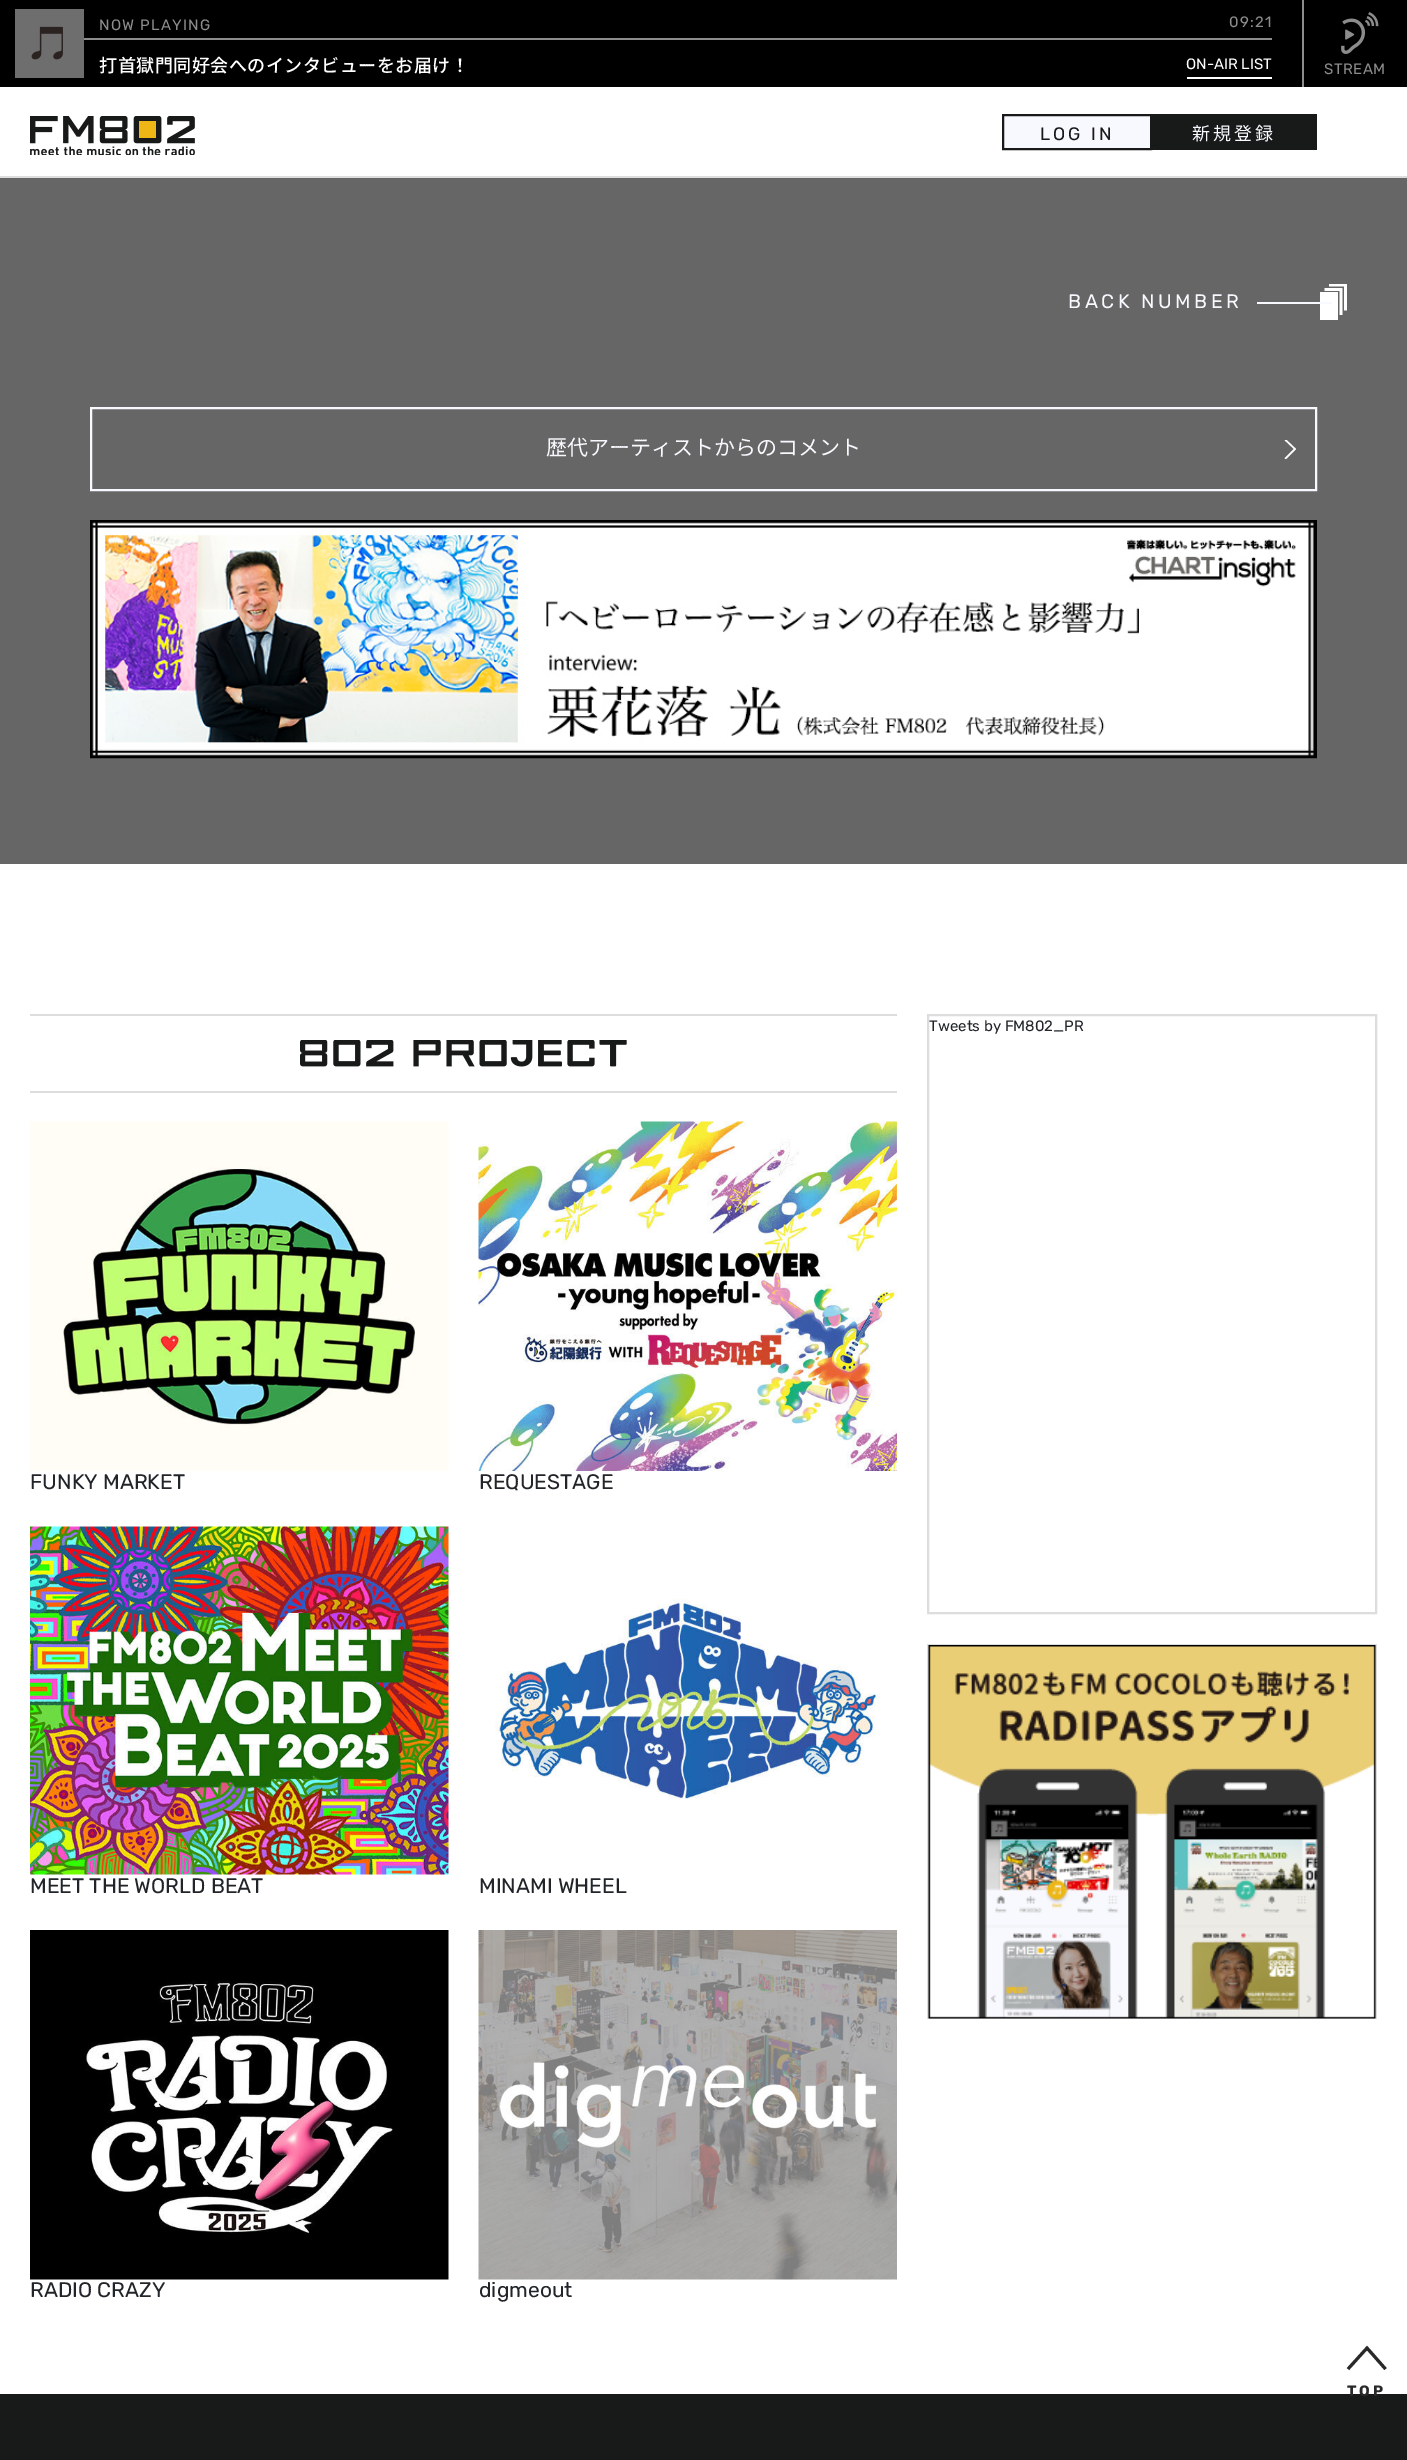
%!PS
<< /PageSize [1407 2460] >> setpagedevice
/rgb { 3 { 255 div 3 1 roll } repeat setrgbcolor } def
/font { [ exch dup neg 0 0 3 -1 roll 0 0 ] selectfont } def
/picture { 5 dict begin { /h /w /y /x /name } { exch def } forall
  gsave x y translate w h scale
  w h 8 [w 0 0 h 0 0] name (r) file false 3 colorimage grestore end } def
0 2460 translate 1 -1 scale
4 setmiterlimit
255 255 255 rgb
0 0 1407 2460 rectfill
0 0 0 rgb
0 0 1407 87 rectfill
(img/1.rgb) 15 9 69 69 picture
[
  [84 38 1188 2 140 140 140]
  [1187 77 85 2 255 255 255]
  [1302 0 2 87 140 140 140]
] { aload pop rgb rectfill } forall
(img/2.rgb) 1341 12 38 42 picture
221 221 221 rgb
0 176 1407 2 rectfill
(img/3.rgb) 30 116 165 39 picture
248 248 255 rgb
1003 115 moveto 1151 115 lineto 1151 149 lineto 1003 149 lineto closepath gsave fill grestore
24 25 25 rgb
2 setlinewidth
stroke
1152 114 165 36 rectfill
102 102 102 rgb
0 178 1407 686 rectfill
(img/4.rgb) 1320 284 27 36 picture
248 248 255 rgb
1257 302 75 2 rectfill
gsave
1277 440 19 19 rectclip
255 255 255 rgb
1.5 setlinewidth
1 setlinecap
1285.5 458.5 moveto 1295 449 lineto 1285.5 440 lineto stroke
grestore
91 408 1225 82 rectstroke
(img/5.rgb) 90 520 1227 239 picture
221 221 221 rgb
928 1015 448 598 rectstroke
927 1644 450 375 rectfill
(img/6.rgb) 928 1645 448 374 picture
30 1014 867 2 rectfill
30 1091 867 2 rectfill
(img/7.rgb) 300 1040 327 27 picture
(img/8.rgb) 30 1121 419 350 picture
(img/9.rgb) 478 1121 419 350 picture
(img/10.rgb) 30 1526 419 349 picture
(img/11.rgb) 495 1599 385 201 picture
(img/12.rgb) 30 1930 419 350 picture
(img/13.rgb) 478 1930 419 350 picture
41 41 41 rgb
3 setlinewidth
1385.5 2369 moveto 1367 2348 lineto 1348 2369 lineto stroke
24 25 25 rgb
0 2394 1407 66 rectfill
/Rubik-Regular 15 font
140 140 140 rgb
99 30 moveto 1.25 0 (NOW PLAYING) ashow
1229 27 moveto 1.25 0 (09:21) ashow
/NotoSansJP-Medium 18 font
255 255 255 rgb
99 72 moveto 0.5 0 (打首獄門同好会へのインタビューをお届け！) ashow
/Rubik-Regular 15 font
1186 69 moveto (ON-AIR LIST) show
140 140 140 rgb
1324 74 moveto 0.5 0 (STREAM) ashow
/Rubik-Regular 18 font
24 25 25 rgb
1040 140 moveto 3 0 (LOG IN) ashow
/NotoSansJP-Regular 18 font
248 248 255 rgb
1192 140 moveto 3 0 (新規登録) ashow
/Rubik-Regular 19.5 font
1068 308 moveto 3.5 0 (BACK NUMBER) ashow
/NotoSansJP-Regular 21 font
546 455 moveto (歴代アーティストからのコメント) show
/Rubik-Regular 15 font
33 37 41 rgb
929 1031 moveto (Tweets by FM802_PR) show
/Rubik-Regular 21 font
[
  [(FUNKY MARKET) 30 1489]
  [(REQUESTAGE) 479 1489]
  [(MEET THE WORLD BEAT) 30 1893]
  [(MINAMI WHEEL) 479 1893]
  [(RADIO CRAZY) 30 2297]
  [(digmeout) 479 2297]
] { aload pop moveto show } forall
/Rubik-Bold 15 font
41 41 41 rgb
1347 2396 moveto 3 0 (TOP) ashow
showpage
